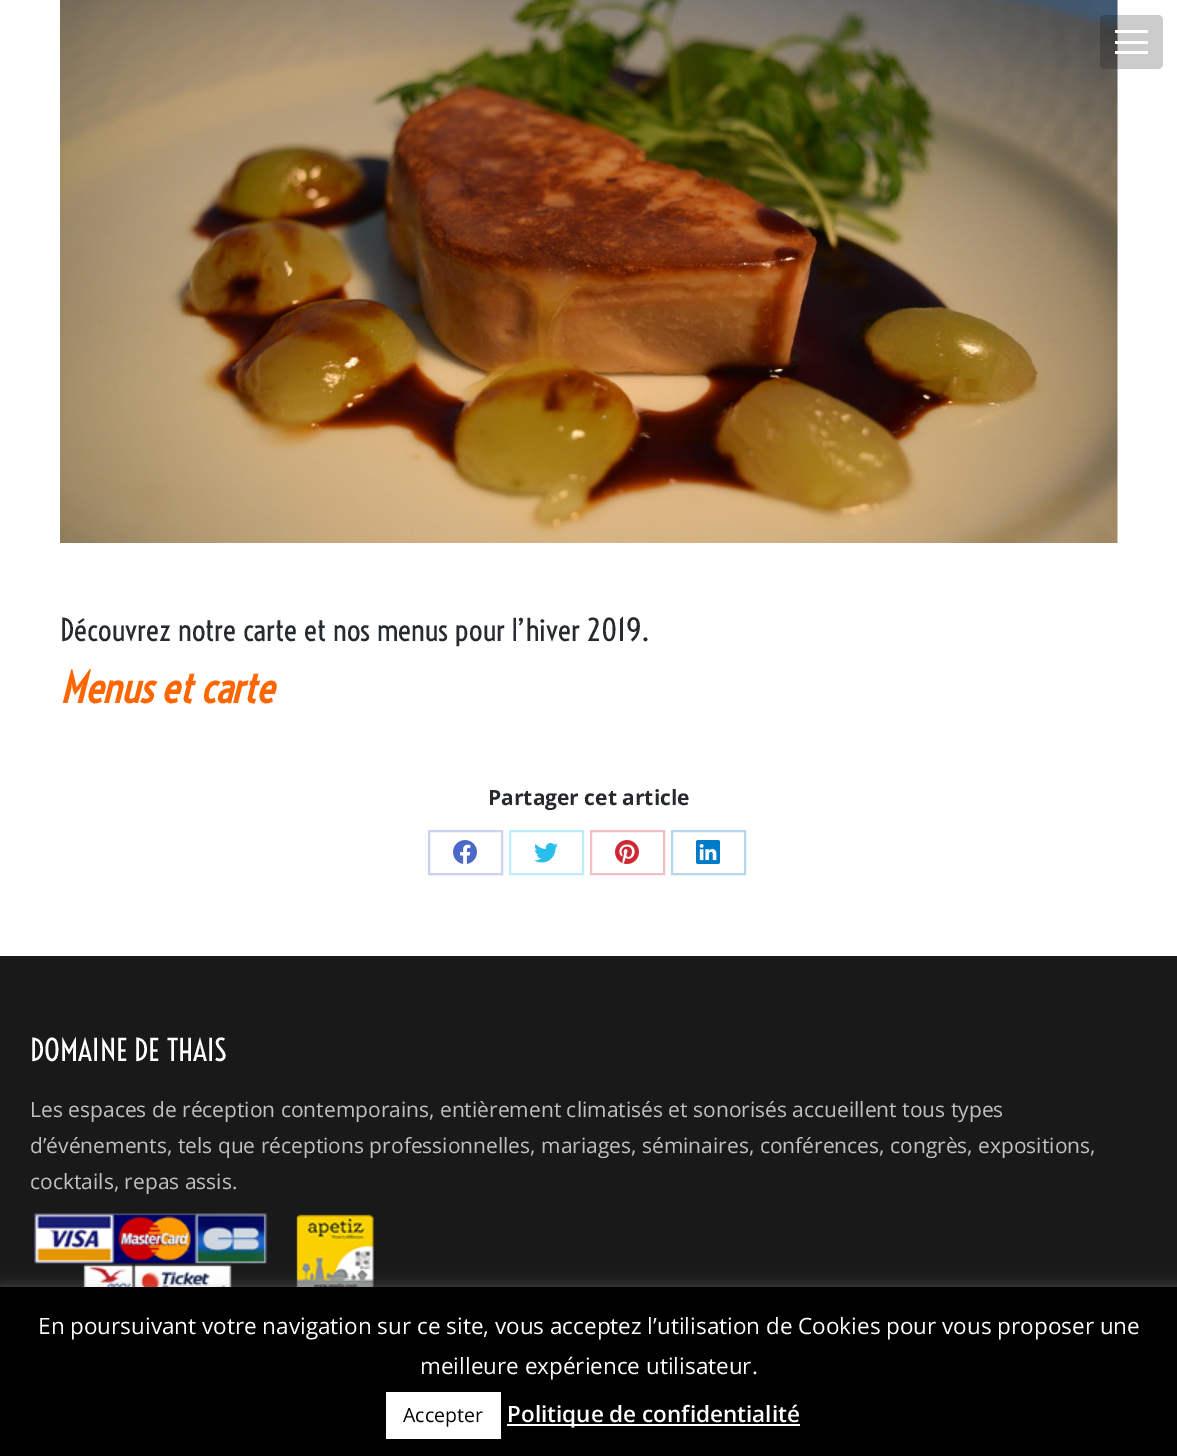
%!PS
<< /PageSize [1177 1456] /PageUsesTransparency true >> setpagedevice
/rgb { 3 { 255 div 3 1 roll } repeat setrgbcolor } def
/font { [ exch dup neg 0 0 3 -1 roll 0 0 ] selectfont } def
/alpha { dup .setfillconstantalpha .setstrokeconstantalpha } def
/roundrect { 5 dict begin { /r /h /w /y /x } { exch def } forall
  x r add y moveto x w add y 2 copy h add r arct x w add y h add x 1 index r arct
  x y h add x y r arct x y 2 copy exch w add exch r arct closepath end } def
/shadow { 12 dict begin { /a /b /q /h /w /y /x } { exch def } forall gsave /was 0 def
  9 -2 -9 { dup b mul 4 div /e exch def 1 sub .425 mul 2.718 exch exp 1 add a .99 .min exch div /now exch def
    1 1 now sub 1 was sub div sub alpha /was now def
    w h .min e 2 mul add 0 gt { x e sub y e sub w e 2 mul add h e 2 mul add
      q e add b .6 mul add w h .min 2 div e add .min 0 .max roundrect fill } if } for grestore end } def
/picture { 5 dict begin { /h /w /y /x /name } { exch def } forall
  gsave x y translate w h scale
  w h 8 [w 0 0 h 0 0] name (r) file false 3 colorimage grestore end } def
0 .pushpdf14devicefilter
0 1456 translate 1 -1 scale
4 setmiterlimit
255 255 255 rgb
0 0 1177 1456 rectfill
(img/1.rgb) 60 0 1058 543 picture
0.2 alpha
0 0 0 rgb
1100 15 63 54 5 roundrect fill
1 alpha
[
  [1115 30 33 3 255 255 255]
  [1115 41 33 3 255 255 255]
  [1115 51 33 3 255 255 255]
] { aload pop rgb rectfill } forall
201 210 238 rgb
2 setlinewidth
429 831 73 43 rectstroke
(img/2.rgb) 453 840 24 24 picture
191 236 249 rgb
510 831 73 43 rectstroke
(img/3.rgb) 534 843 24 20 picture
241 191 194 rgb
591 831 73 43 rectstroke
(img/4.rgb) 615 840 24 24 picture
179 215 238 rgb
672 831 73 43 rectstroke
(img/5.rgb) 696 840 24 24 picture
25 25 25 rgb
0 956 1177 331 rectfill
(img/6.rgb) 34 1213 340 74 picture
172 171 171 rgb
0 1286 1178 169 0 7.5 0.3 shadow
[
  [0 1287 1177 169 0 0 0]
  [386 1392 115 47 255 255 255]
  [507 1424 293 2 255 255 255]
] { aload pop rgb rectfill } forall
/Voltaire-Regular 30 font
38 43 46 rgb
60 641 moveto (Découvrez notre carte et nos menus pour l’hiver 2019.) show
/Voltaire-BoldItalic 40.5 font
255 102 0 rgb
60 703 moveto (Menus et carte) show
/OpenSans-Bold 21 font
38 43 46 rgb
488 805 moveto (Partager cet article) show
/Voltaire-Regular 30 font
255 255 255 rgb
30 1061 moveto (DOMAINE DE THAIS) show
/OpenSans-Regular 21 font
193 193 193 rgb
[
  [(Les espaces de réception contemporains, entièrement climatisés et sonorisés accueillent tous types) 30 1117]
  [(d’événements, tels que réceptions professionnelles, mariages, séminaires, conférences, congrès, expositions,) 30 1153]
  [(cocktails, repas assis.) 30 1189]
] { aload pop moveto show } forall
/OpenSans-Regular 22.5 font
255 255 255 rgb
38 1334 moveto (En poursuivant votre navigation sur ce site, vous acceptez l’utilisation de Cookies pour vous proposer une) show
420 1374 moveto (meilleure expérience utilisateur.) show
/OpenSans-Regular 19.5 font
0 0 0 rgb
403 1422 moveto (Accepter) show
/OpenSans-SemiBold 22.5 font
255 255 255 rgb
507 1422 moveto (Politique de confidentialité) show
.poppdf14devicefilter showpage
